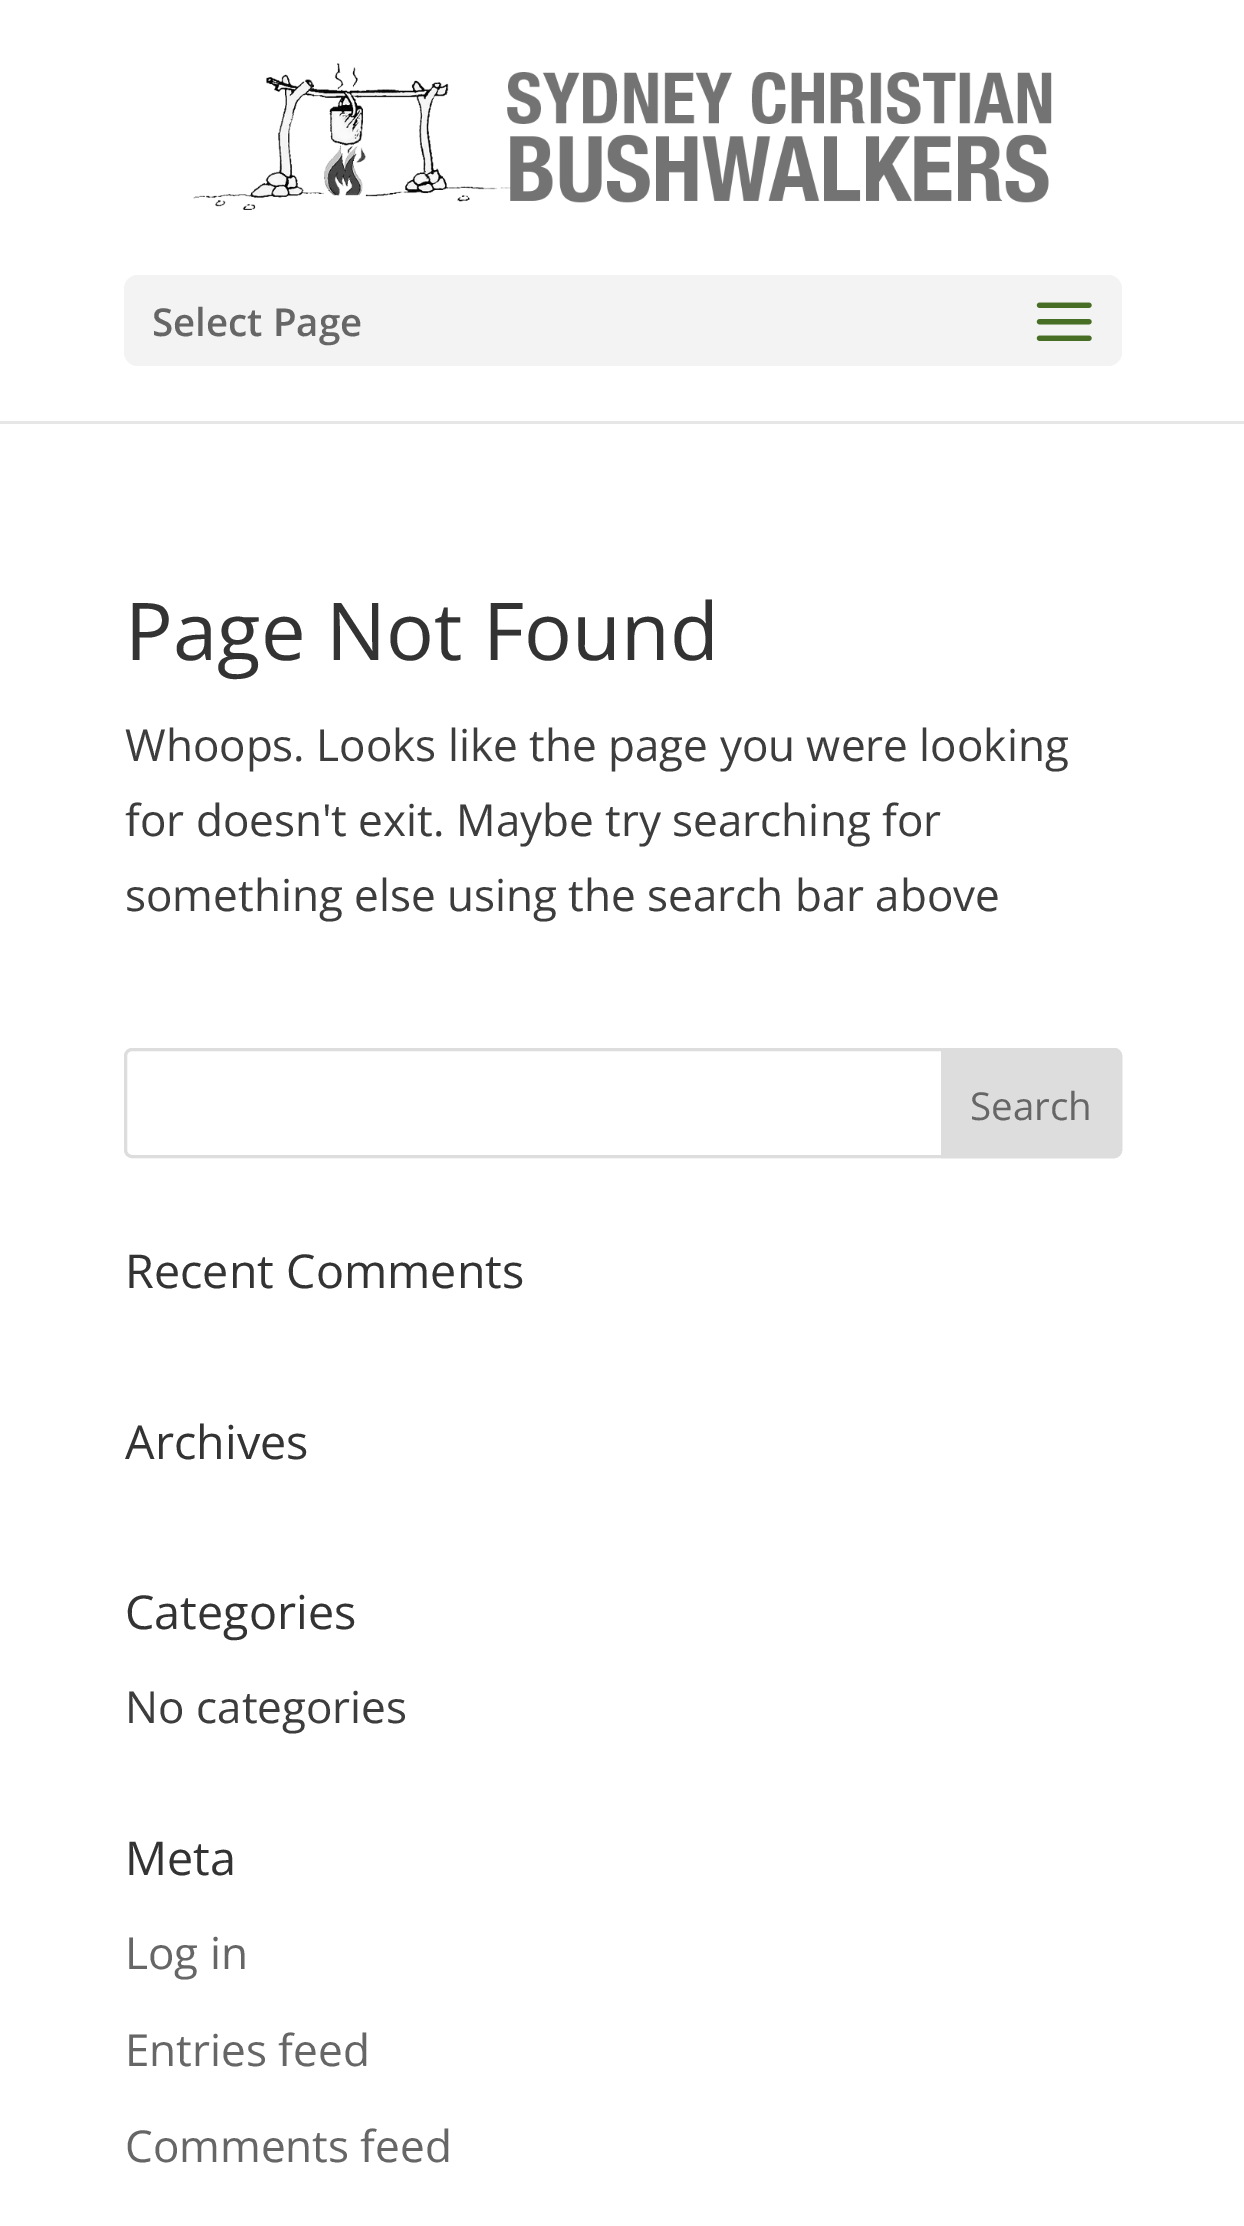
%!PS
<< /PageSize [1244 2226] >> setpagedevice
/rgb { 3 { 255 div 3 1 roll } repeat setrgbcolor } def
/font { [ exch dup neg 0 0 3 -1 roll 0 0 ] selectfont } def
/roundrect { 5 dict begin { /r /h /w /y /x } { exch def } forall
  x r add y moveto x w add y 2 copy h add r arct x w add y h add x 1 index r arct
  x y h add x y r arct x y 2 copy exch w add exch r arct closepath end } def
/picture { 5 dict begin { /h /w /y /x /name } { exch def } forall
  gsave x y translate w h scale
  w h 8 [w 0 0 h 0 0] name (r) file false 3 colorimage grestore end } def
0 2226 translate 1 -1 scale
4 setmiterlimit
255 255 255 rgb
0 0 1244 2226 rectfill
230 230 230 rgb
0 421 moveto 0 424 lineto 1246 424 lineto 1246 3 lineto 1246 421 lineto closepath fill
(img/1.rgb) 193 63 859 147 picture
243 243 243 rgb
124 275 998 91 14 roundrect fill
(img/2.rgb) 1036 302 56 39 picture
221 221 221 rgb
3 setlinewidth
125.5 1049.5 995 107 6.5 roundrect stroke
942.5 1049.5 moveto 1114 1049.5 lineto 1117.5 1049.5 1120.5 1052.5 1120.5 1056 curveto 1120.5 1150 lineto 1120.5 1153.5 1117.5 1156.5 1114 1156.5 curveto 942.5 1156.5 lineto closepath gsave fill grestore
stroke
/OpenSans-SemiBold 38.5 font
102 102 102 rgb
152 336 moveto (Select Page) show
/OpenSans-Regular 79.75 font
51 51 51 rgb
125 660 moveto (Page Not Found) show
/OpenSans-Regular 44 font
61 61 61 rgb
[
  [(Whoops. Looks like the page you were looking) 125 761]
  [(for doesn't exit. Maybe try searching for) 125 836]
  [(something else using the search bar above) 125 911]
] { aload pop moveto show } forall
/OpenSans-Regular 38.5 font
102 102 102 rgb
970 1120 moveto (Search) show
/OpenSans-Regular 46.75 font
51 51 51 rgb
[
  [(Recent Comments) 125 1288]
  [(Archives) 125 1459]
  [(Categories) 125 1629]
] { aload pop moveto show } forall
/OpenSans-Regular 44 font
61 61 61 rgb
125 1723 moveto (No categories) show
/OpenSans-Regular 46.75 font
51 51 51 rgb
125 1875 moveto (Meta) show
/OpenSans-Regular 44 font
102 102 102 rgb
[
  [(Log in) 125 1969]
  [(Entries feed) 125 2066]
  [(Comments feed) 125 2162]
] { aload pop moveto show } forall
showpage
